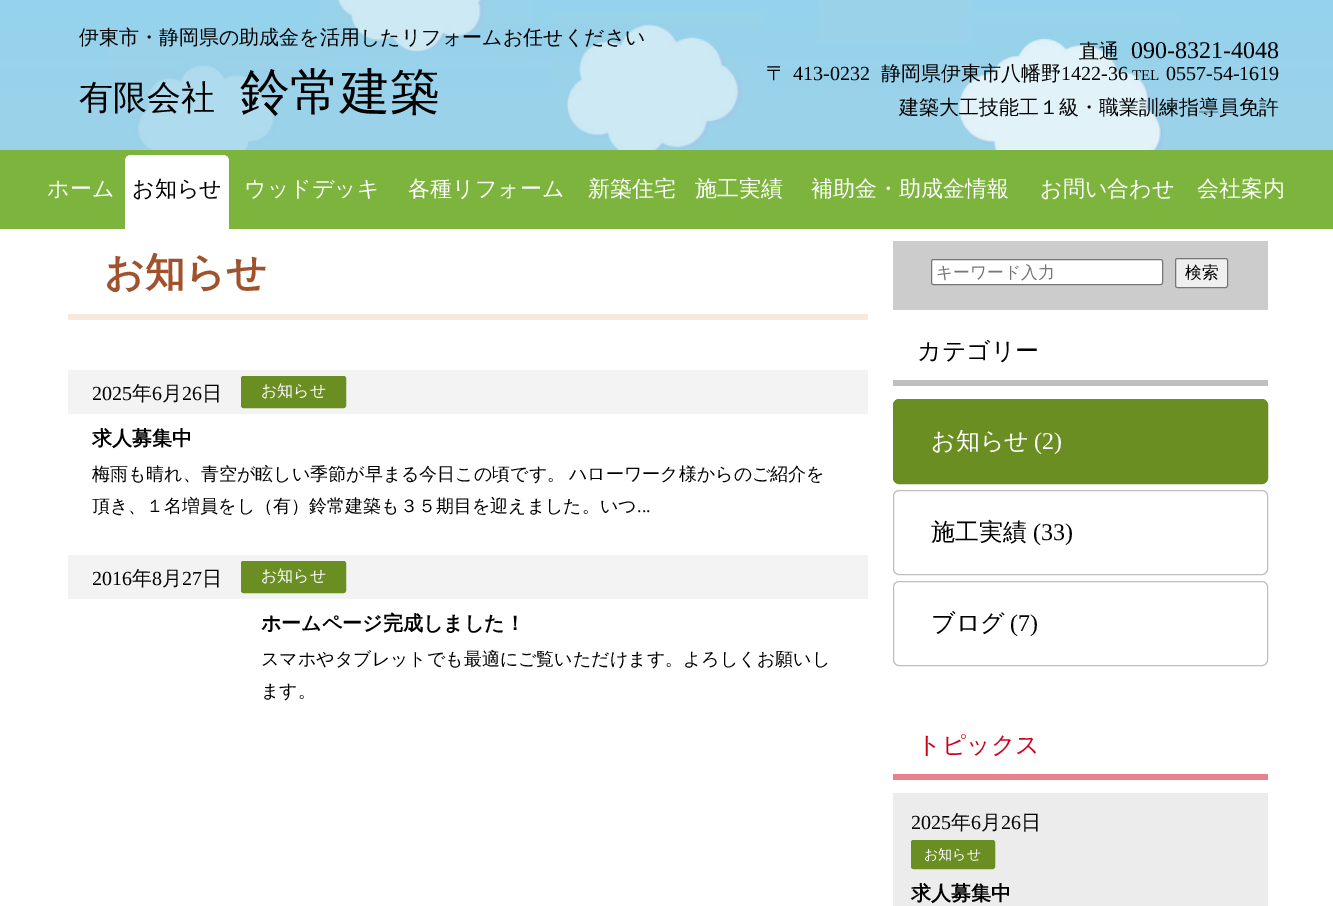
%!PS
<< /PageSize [1333 906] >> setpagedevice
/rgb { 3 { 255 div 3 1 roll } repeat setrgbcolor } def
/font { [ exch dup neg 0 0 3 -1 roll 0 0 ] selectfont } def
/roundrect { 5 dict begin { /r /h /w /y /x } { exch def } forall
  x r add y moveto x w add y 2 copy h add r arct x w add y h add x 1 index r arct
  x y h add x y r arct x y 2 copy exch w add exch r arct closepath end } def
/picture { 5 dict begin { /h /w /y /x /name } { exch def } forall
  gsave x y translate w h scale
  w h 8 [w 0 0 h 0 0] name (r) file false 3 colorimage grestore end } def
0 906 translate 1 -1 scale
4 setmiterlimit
255 255 255 rgb
0 0 1333 906 rectfill
(img/1.rgb) 0 0 1333 150 picture
125 180 61 rgb
0 150 1333 79 rectfill
255 255 255 rgb
131 155 moveto 223 155 lineto 226.5 155 229 157.5 229 161 curveto 229 229 lineto 125 229 lineto 125 161 lineto 125 157.5 127.5 155 131 155 curveto closepath fill
248 233 221 rgb
68 314 800 6 rectfill
243 243 243 rgb
68 370 800 44 rectfill
107 142 35 rgb
241.5 376.5 104 31 2 roundrect gsave fill grestore
stroke
243 243 243 rgb
68 555 800 44 rectfill
107 142 35 rgb
241.5 561.5 104 31 2 roundrect gsave fill grestore
stroke
204 204 204 rgb
893 241 375 69 rectfill
255 255 255 rgb
931.5 259.5 231 25 2 roundrect gsave fill grestore
118 118 118 rgb
stroke
239 239 239 rgb
1175.5 258.5 52 29 2 roundrect gsave fill grestore
118 118 118 rgb
stroke
191 191 191 rgb
893 380 375 6 rectfill
107 142 35 rgb
893.5 399.5 374 84 5.5 roundrect gsave fill grestore
stroke
191 191 191 rgb
893.5 490.5 374 84 5.5 roundrect stroke
893.5 581.5 374 84 5.5 roundrect stroke
232 129 141 rgb
893 774 375 6 rectfill
236 236 236 rgb
893 793 375 113 rectfill
107 142 35 rgb
911.5 840.5 83 28 2 roundrect gsave fill grestore
stroke
/WenQuanYiZenHei-Medium 20 font
0 0 0 rgb
79 44 moveto (伊東市・静岡県の助成金を活用したリフォームお任せください) show
/WenQuanYiZenHei-Medium 34 font
79 109 moveto (有限会社) show
/WenQuanYiZenHei-Medium 50 font
240 109 moveto (鈴常建築) show
/WenQuanYiZenHei-Medium 20 font
1079 58 moveto (直通) show
/LiberationSerif-Regular 24 font
1131 58 moveto (090-8321-4048) show
/WenQuanYiZenHei-Medium 20 font
766 80 moveto (〒) show
/LiberationSerif-Regular 20 font
793 80 moveto (413-0232) show
/WenQuanYiZenHei-Medium 20 font
881 80 moveto (静岡県伊東市八幡野) show
/LiberationSerif-Regular 20 font
1061 80 moveto (1422-36) show
/LiberationSerif-Regular 15 font
1132 80 moveto (TEL) show
/LiberationSerif-Regular 20 font
1166 80 moveto (0557-54-1619) show
/WenQuanYiZenHei-Medium 20 font
899 114 moveto (建築大工技能工１級・職業訓練指導員免許) show
/WenQuanYiZenHei-Medium 22 font
255 255 255 rgb
47 196 moveto (ホーム) show
0 0 0 rgb
132 196 moveto (お知らせ) show
255 255 255 rgb
[
  [(ウッドデッキ) 244 196]
  [(各種リフォーム) 408 196]
  [(新築住宅) 588 196]
  [(施工実績) 695 196]
  [(補助金・助成金情報) 811 196]
  [(お問い合わせ) 1040 196]
  [(会社案内) 1197 196]
] { aload pop moveto show } forall
/WenQuanYiZenHei-Bold 40 font
160 82 45 rgb
104 286 moveto (お知らせ) show
/LiberationSerif-Regular 20 font
0 0 0 rgb
92 400 moveto (2025) show
/WenQuanYiZenHei-Medium 20 font
132 400 moveto (年) show
/LiberationSerif-Regular 20 font
152 400 moveto (6) show
/WenQuanYiZenHei-Medium 20 font
162 400 moveto (月) show
/LiberationSerif-Regular 20 font
182 400 moveto (26) show
/WenQuanYiZenHei-Medium 20 font
202 400 moveto (日) show
/WenQuanYiZenHei-Medium 16 font
255 255 255 rgb
261 396 moveto (お知らせ) show
/WenQuanYiZenHei-Bold 20 font
0 0 0 rgb
92 445 moveto (求人募集中) show
/WenQuanYiZenHei-Medium 18 font
[
  [(梅雨も晴れ、青空が眩しい季節が早まる今日この頃です。) 92 480]
  [(ハローワーク様からのご紹介を) 569 480]
  [(頂き、１名増員をし（有）鈴常建築も３５期目を迎えました。いつ) 92 512]
] { aload pop moveto show } forall
/LiberationSerif-Regular 18 font
637 512 moveto (...) show
/LiberationSerif-Regular 20 font
92 585 moveto (2016) show
/WenQuanYiZenHei-Medium 20 font
132 585 moveto (年) show
/LiberationSerif-Regular 20 font
152 585 moveto (8) show
/WenQuanYiZenHei-Medium 20 font
162 585 moveto (月) show
/LiberationSerif-Regular 20 font
182 585 moveto (27) show
/WenQuanYiZenHei-Medium 20 font
202 585 moveto (日) show
/WenQuanYiZenHei-Medium 16 font
255 255 255 rgb
261 581 moveto (お知らせ) show
/WenQuanYiZenHei-Bold 20 font
0 0 0 rgb
261 630 moveto (ホームページ完成しました！) show
/WenQuanYiZenHei-Medium 18 font
261 665 moveto (スマホやタブレットでも最適にご覧いただけます。よろしくお願いし) show
261 697 moveto (ます。) show
/WenQuanYiZenHei-Medium 16.75 font
117 117 117 rgb
936 278 moveto (キーワード入力) show
0 0 0 rgb
1185 278 moveto (検索) show
/WenQuanYiZenHei-Medium 24 font
917 359 moveto (カテゴリー) show
255 255 255 rgb
931 449 moveto (お知らせ) show
/LiberationSerif-Regular 24 font
1034 449 moveto (\(2\)) show
/WenQuanYiZenHei-Medium 24 font
0 0 0 rgb
931 540 moveto (施工実績) show
/LiberationSerif-Regular 24 font
1033 540 moveto (\(33\)) show
/WenQuanYiZenHei-Medium 24 font
931 631 moveto (ブログ) show
/LiberationSerif-Regular 24 font
1010 631 moveto (\(7\)) show
/WenQuanYiZenHei-Medium 24 font
208 2 27 rgb
917 753 moveto (トピックス) show
/LiberationSerif-Regular 20 font
0 0 0 rgb
911 829 moveto (2025) show
/WenQuanYiZenHei-Medium 20 font
951 829 moveto (年) show
/LiberationSerif-Regular 20 font
971 829 moveto (6) show
/WenQuanYiZenHei-Medium 20 font
981 829 moveto (月) show
/LiberationSerif-Regular 20 font
1001 829 moveto (26) show
/WenQuanYiZenHei-Medium 20 font
1021 829 moveto (日) show
/WenQuanYiZenHei-Medium 14 font
255 255 255 rgb
924 859 moveto (お知らせ) show
/WenQuanYiZenHei-Bold 20 font
0 0 0 rgb
911 900 moveto (求人募集中) show
showpage
